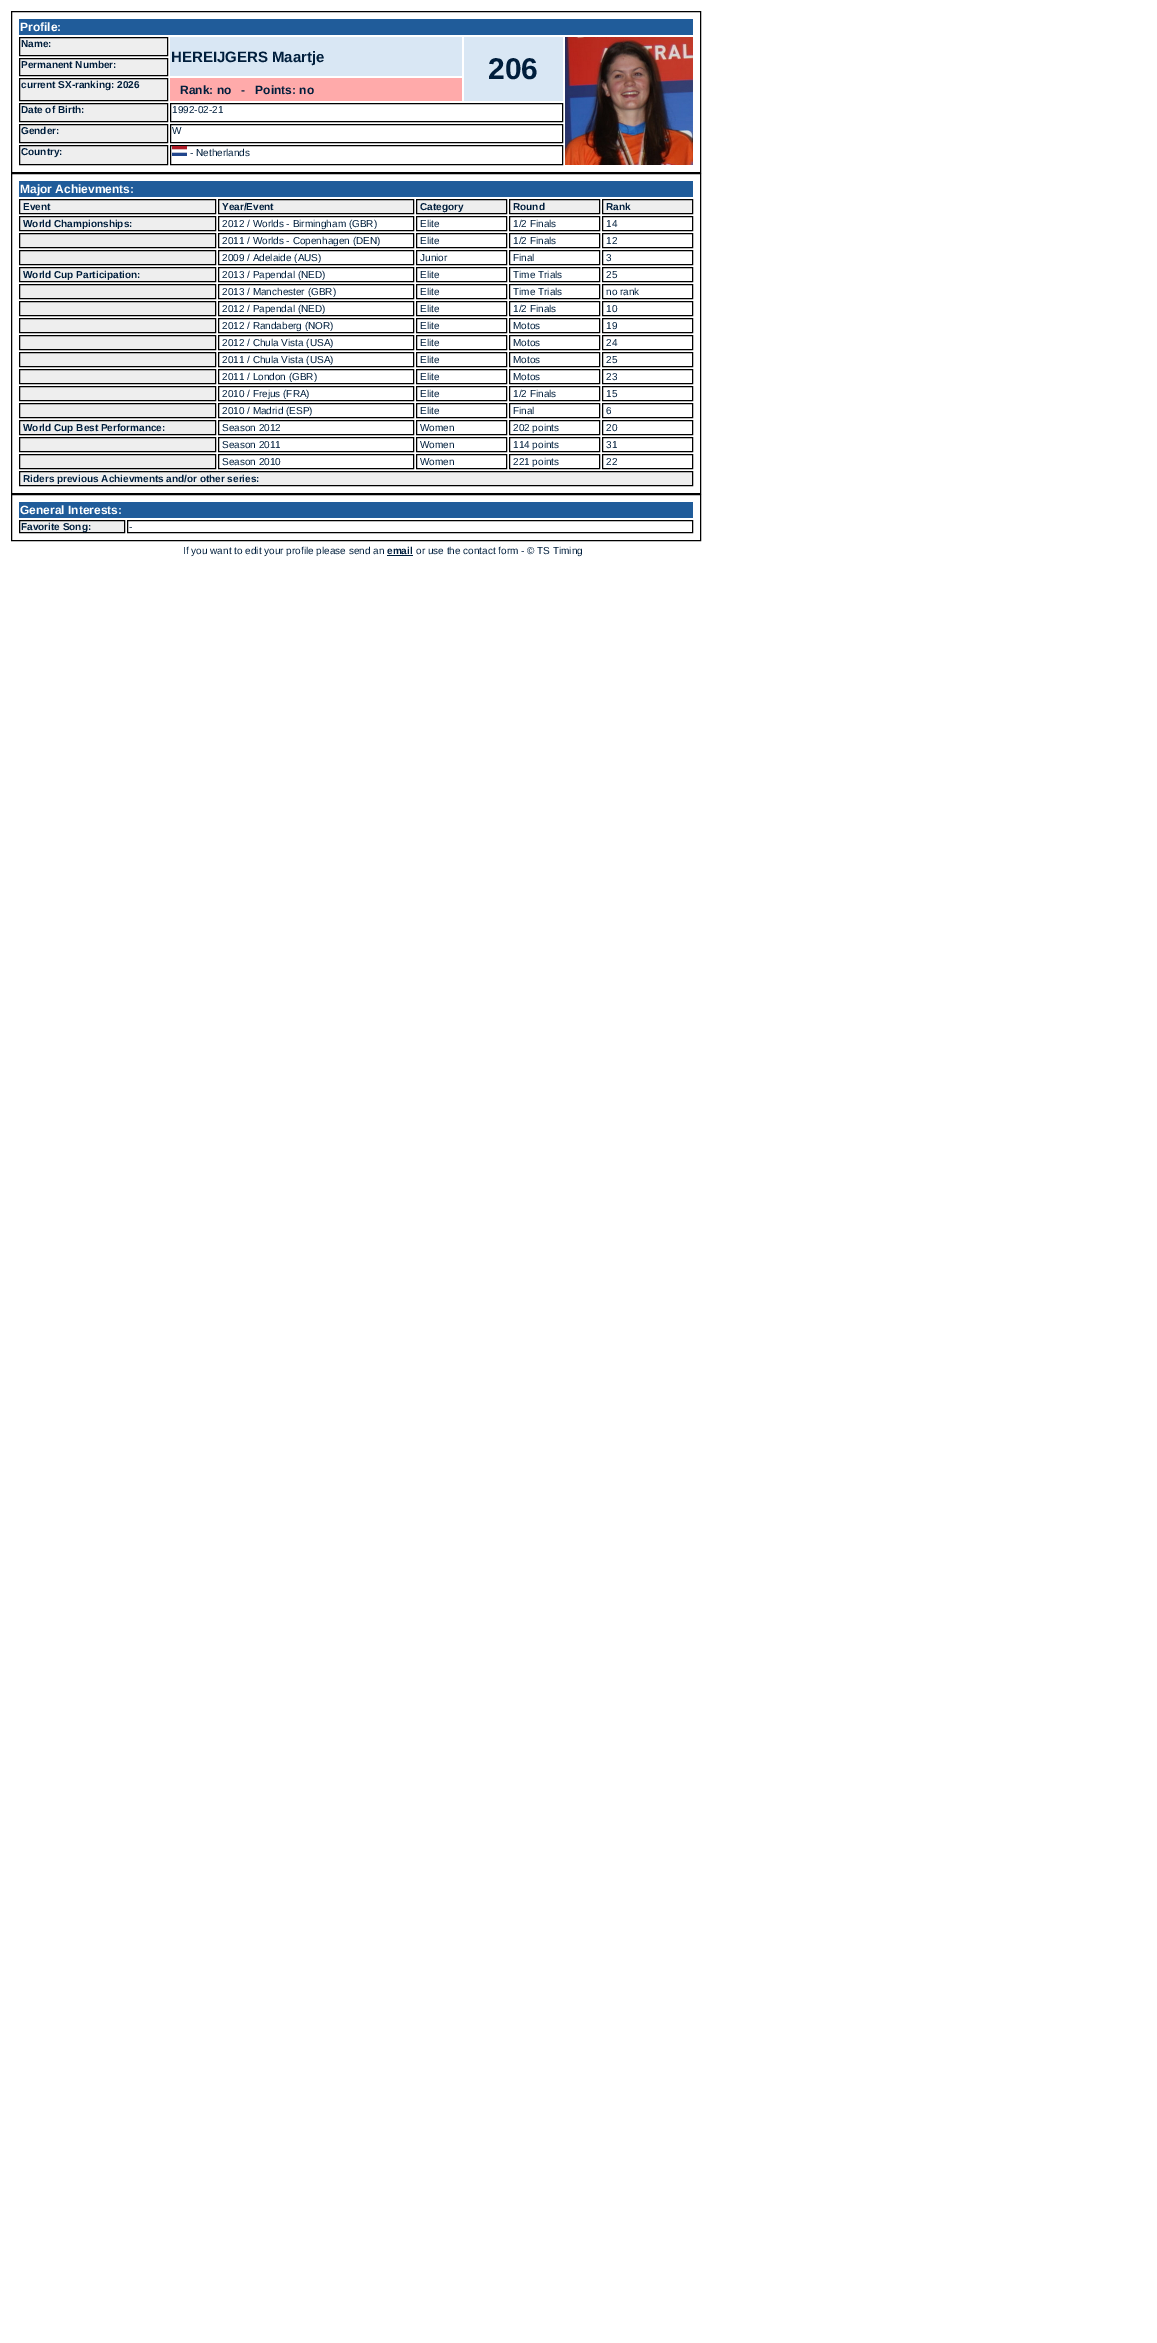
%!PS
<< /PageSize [1157 2343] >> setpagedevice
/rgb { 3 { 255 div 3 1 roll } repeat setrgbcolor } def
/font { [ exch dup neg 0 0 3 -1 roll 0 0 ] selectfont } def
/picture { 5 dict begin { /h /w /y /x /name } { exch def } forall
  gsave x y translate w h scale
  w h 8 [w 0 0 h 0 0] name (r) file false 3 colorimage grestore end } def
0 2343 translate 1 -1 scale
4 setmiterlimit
255 255 255 rgb
0 0 1157 2343 rectfill
0 0 0 rgb
11.5 11.5 689 161 rectstroke
32 92 154 rgb
19 19 674 16 rectfill
238 238 238 rgb
19.5 37.5 moveto 167.5 37.5 lineto 167.5 55.5 lineto 19.5 55.5 lineto closepath gsave fill grestore
0 0 0 rgb
stroke
(img/1.rgb) 565 37 128 128 picture
217 231 244 rgb
170 37 292 39 rectfill
464 37 99 64 rectfill
238 238 238 rgb
19.5 58.5 moveto 167.5 58.5 lineto 167.5 75.5 lineto 19.5 75.5 lineto closepath gsave fill grestore
0 0 0 rgb
stroke
238 238 238 rgb
19.5 78.5 moveto 167.5 78.5 lineto 167.5 100.5 lineto 19.5 100.5 lineto closepath gsave fill grestore
0 0 0 rgb
stroke
255 170 170 rgb
170 78 292 23 rectfill
238 238 238 rgb
19.5 103.5 moveto 167.5 103.5 lineto 167.5 121.5 lineto 19.5 121.5 lineto closepath gsave fill grestore
0 0 0 rgb
stroke
170.5 103.5 392 18 rectstroke
238 238 238 rgb
19.5 124.5 moveto 167.5 124.5 lineto 167.5 142.5 lineto 19.5 142.5 lineto closepath gsave fill grestore
0 0 0 rgb
stroke
170.5 124.5 392 18 rectstroke
238 238 238 rgb
19.5 145.5 moveto 167.5 145.5 lineto 167.5 164.5 lineto 19.5 164.5 lineto closepath gsave fill grestore
0 0 0 rgb
stroke
170.5 145.5 392 19 rectstroke
(img/2.rgb) 172 146 15 10 picture
11.5 173.5 689 320 rectstroke
32 92 154 rgb
19 181 674 16 rectfill
238 238 238 rgb
19.5 199.5 moveto 215.5 199.5 lineto 215.5 213.5 lineto 19.5 213.5 lineto closepath gsave fill grestore
0 0 0 rgb
stroke
238 238 238 rgb
218.5 199.5 moveto 413.5 199.5 lineto 413.5 213.5 lineto 218.5 213.5 lineto closepath gsave fill grestore
0 0 0 rgb
stroke
238 238 238 rgb
416.5 199.5 moveto 506.5 199.5 lineto 506.5 213.5 lineto 416.5 213.5 lineto closepath gsave fill grestore
0 0 0 rgb
stroke
238 238 238 rgb
509.5 199.5 moveto 599.5 199.5 lineto 599.5 213.5 lineto 509.5 213.5 lineto closepath gsave fill grestore
0 0 0 rgb
stroke
238 238 238 rgb
602.5 199.5 moveto 692.5 199.5 lineto 692.5 213.5 lineto 602.5 213.5 lineto closepath gsave fill grestore
0 0 0 rgb
stroke
238 238 238 rgb
19.5 216.5 moveto 215.5 216.5 lineto 215.5 230.5 lineto 19.5 230.5 lineto closepath gsave fill grestore
0 0 0 rgb
stroke
218.5 216.5 195 14 rectstroke
416.5 216.5 90 14 rectstroke
509.5 216.5 90 14 rectstroke
602.5 216.5 90 14 rectstroke
238 238 238 rgb
19.5 233.5 moveto 215.5 233.5 lineto 215.5 247.5 lineto 19.5 247.5 lineto closepath gsave fill grestore
0 0 0 rgb
stroke
218.5 233.5 195 14 rectstroke
416.5 233.5 90 14 rectstroke
509.5 233.5 90 14 rectstroke
602.5 233.5 90 14 rectstroke
238 238 238 rgb
19.5 250.5 moveto 215.5 250.5 lineto 215.5 264.5 lineto 19.5 264.5 lineto closepath gsave fill grestore
0 0 0 rgb
stroke
218.5 250.5 195 14 rectstroke
416.5 250.5 90 14 rectstroke
509.5 250.5 90 14 rectstroke
602.5 250.5 90 14 rectstroke
238 238 238 rgb
19.5 267.5 moveto 215.5 267.5 lineto 215.5 281.5 lineto 19.5 281.5 lineto closepath gsave fill grestore
0 0 0 rgb
stroke
218.5 267.5 195 14 rectstroke
416.5 267.5 90 14 rectstroke
509.5 267.5 90 14 rectstroke
602.5 267.5 90 14 rectstroke
238 238 238 rgb
19.5 284.5 moveto 215.5 284.5 lineto 215.5 298.5 lineto 19.5 298.5 lineto closepath gsave fill grestore
0 0 0 rgb
stroke
218.5 284.5 195 14 rectstroke
416.5 284.5 90 14 rectstroke
509.5 284.5 90 14 rectstroke
602.5 284.5 90 14 rectstroke
238 238 238 rgb
19.5 301.5 moveto 215.5 301.5 lineto 215.5 315.5 lineto 19.5 315.5 lineto closepath gsave fill grestore
0 0 0 rgb
stroke
218.5 301.5 195 14 rectstroke
416.5 301.5 90 14 rectstroke
509.5 301.5 90 14 rectstroke
602.5 301.5 90 14 rectstroke
238 238 238 rgb
19.5 318.5 moveto 215.5 318.5 lineto 215.5 332.5 lineto 19.5 332.5 lineto closepath gsave fill grestore
0 0 0 rgb
stroke
218.5 318.5 195 14 rectstroke
416.5 318.5 90 14 rectstroke
509.5 318.5 90 14 rectstroke
602.5 318.5 90 14 rectstroke
238 238 238 rgb
19.5 335.5 moveto 215.5 335.5 lineto 215.5 349.5 lineto 19.5 349.5 lineto closepath gsave fill grestore
0 0 0 rgb
stroke
218.5 335.5 195 14 rectstroke
416.5 335.5 90 14 rectstroke
509.5 335.5 90 14 rectstroke
602.5 335.5 90 14 rectstroke
238 238 238 rgb
19.5 352.5 moveto 215.5 352.5 lineto 215.5 366.5 lineto 19.5 366.5 lineto closepath gsave fill grestore
0 0 0 rgb
stroke
218.5 352.5 195 14 rectstroke
416.5 352.5 90 14 rectstroke
509.5 352.5 90 14 rectstroke
602.5 352.5 90 14 rectstroke
238 238 238 rgb
19.5 369.5 moveto 215.5 369.5 lineto 215.5 383.5 lineto 19.5 383.5 lineto closepath gsave fill grestore
0 0 0 rgb
stroke
218.5 369.5 195 14 rectstroke
416.5 369.5 90 14 rectstroke
509.5 369.5 90 14 rectstroke
602.5 369.5 90 14 rectstroke
238 238 238 rgb
19.5 386.5 moveto 215.5 386.5 lineto 215.5 400.5 lineto 19.5 400.5 lineto closepath gsave fill grestore
0 0 0 rgb
stroke
218.5 386.5 195 14 rectstroke
416.5 386.5 90 14 rectstroke
509.5 386.5 90 14 rectstroke
602.5 386.5 90 14 rectstroke
238 238 238 rgb
19.5 403.5 moveto 215.5 403.5 lineto 215.5 417.5 lineto 19.5 417.5 lineto closepath gsave fill grestore
0 0 0 rgb
stroke
218.5 403.5 195 14 rectstroke
416.5 403.5 90 14 rectstroke
509.5 403.5 90 14 rectstroke
602.5 403.5 90 14 rectstroke
238 238 238 rgb
19.5 420.5 moveto 215.5 420.5 lineto 215.5 434.5 lineto 19.5 434.5 lineto closepath gsave fill grestore
0 0 0 rgb
stroke
218.5 420.5 195 14 rectstroke
416.5 420.5 90 14 rectstroke
509.5 420.5 90 14 rectstroke
602.5 420.5 90 14 rectstroke
238 238 238 rgb
19.5 437.5 moveto 215.5 437.5 lineto 215.5 451.5 lineto 19.5 451.5 lineto closepath gsave fill grestore
0 0 0 rgb
stroke
218.5 437.5 195 14 rectstroke
416.5 437.5 90 14 rectstroke
509.5 437.5 90 14 rectstroke
602.5 437.5 90 14 rectstroke
238 238 238 rgb
19.5 454.5 moveto 215.5 454.5 lineto 215.5 468.5 lineto 19.5 468.5 lineto closepath gsave fill grestore
0 0 0 rgb
stroke
218.5 454.5 195 14 rectstroke
416.5 454.5 90 14 rectstroke
509.5 454.5 90 14 rectstroke
602.5 454.5 90 14 rectstroke
238 238 238 rgb
19.5 471.5 moveto 692.5 471.5 lineto 692.5 485.5 lineto 19.5 485.5 lineto closepath gsave fill grestore
0 0 0 rgb
stroke
11.5 494.5 689 46 rectstroke
32 92 154 rgb
19 502 674 16 rectfill
238 238 238 rgb
19.5 520.5 moveto 124.5 520.5 lineto 124.5 532.5 lineto 19.5 532.5 lineto closepath gsave fill grestore
0 0 0 rgb
stroke
127.5 520.5 565 12 rectstroke
0 30 60 rgb
387 555 26 1 rectfill
/LiberationSans-Bold 12 font
255 255 255 rgb
20 31 moveto (Profile:) show
/LiberationSans-Bold 10 font
0 30 60 rgb
21 47 moveto (Name:) show
/LiberationSans-Bold 15 font
171 62 moveto (HEREIJGERS Maartje) show
/LiberationSans-Bold 30 font
488 79 moveto (206) show
/LiberationSans-Bold 10 font
21 68 moveto (Permanent Number:) show
21 88 moveto (current SX-ranking: 2026) show
/LiberationSans-Bold 12 font
180 94 moveto (Rank: no   -   Points: no) show
/LiberationSans-Bold 10 font
21 113 moveto (Date of Birth:) show
/LiberationSans-Regular 10 font
172 113 moveto (1992-02-21) show
/LiberationSans-Bold 10 font
21 134 moveto (Gender:) show
/LiberationSans-Regular 10 font
172 134 moveto (W) show
/LiberationSans-Bold 10 font
21 155 moveto (Country:) show
/LiberationSans-Regular 10 font
190 156 moveto (- Netherlands) show
/LiberationSans-Bold 12 font
255 255 255 rgb
20 193 moveto (Major Achievments:) show
/LiberationSans-Bold 10 font
0 30 60 rgb
[
  [(Event) 23 210]
  [(Year/Event) 222 210]
  [(Category) 420 210]
  [(Round) 513 210]
  [(Rank) 606 210]
  [(World Championships:) 23 227]
] { aload pop moveto show } forall
/LiberationSans-Regular 10 font
[
  [(2012 / Worlds - Birmingham \(GBR\)) 222 227]
  [(Elite) 420 227]
  [(1/2 Finals) 513 227]
  [(14) 606 227]
  [(2011 / Worlds - Copenhagen \(DEN\)) 222 244]
  [(Elite) 420 244]
  [(1/2 Finals) 513 244]
  [(12) 606 244]
  [(2009 / Adelaide \(AUS\)) 222 261]
  [(Junior) 420 261]
  [(Final) 513 261]
  [(3) 606 261]
] { aload pop moveto show } forall
/LiberationSans-Bold 10 font
23 278 moveto (World Cup Participation:) show
/LiberationSans-Regular 10 font
[
  [(2013 / Papendal \(NED\)) 222 278]
  [(Elite) 420 278]
  [(Time Trials) 513 278]
  [(25) 606 278]
  [(2013 / Manchester \(GBR\)) 222 295]
  [(Elite) 420 295]
  [(Time Trials) 513 295]
  [(no rank) 606 295]
  [(2012 / Papendal \(NED\)) 222 312]
  [(Elite) 420 312]
  [(1/2 Finals) 513 312]
  [(10) 606 312]
  [(2012 / Randaberg \(NOR\)) 222 329]
  [(Elite) 420 329]
  [(Motos) 513 329]
  [(19) 606 329]
  [(2012 / Chula Vista \(USA\)) 222 346]
  [(Elite) 420 346]
  [(Motos) 513 346]
  [(24) 606 346]
  [(2011 / Chula Vista \(USA\)) 222 363]
  [(Elite) 420 363]
  [(Motos) 513 363]
  [(25) 606 363]
  [(2011 / London \(GBR\)) 222 380]
  [(Elite) 420 380]
  [(Motos) 513 380]
  [(23) 606 380]
  [(2010 / Frejus \(FRA\)) 222 397]
  [(Elite) 420 397]
  [(1/2 Finals) 513 397]
  [(15) 606 397]
  [(2010 / Madrid \(ESP\)) 222 414]
  [(Elite) 420 414]
  [(Final) 513 414]
  [(6) 606 414]
] { aload pop moveto show } forall
/LiberationSans-Bold 10 font
23 431 moveto (World Cup Best Performance:) show
/LiberationSans-Regular 10 font
[
  [(Season 2012) 222 431]
  [(Women) 420 431]
  [(202 points) 513 431]
  [(20) 606 431]
  [(Season 2011) 222 448]
  [(Women) 420 448]
  [(114 points) 513 448]
  [(31) 606 448]
  [(Season 2010) 222 465]
  [(Women) 420 465]
  [(221 points) 513 465]
  [(22) 606 465]
] { aload pop moveto show } forall
/LiberationSans-Bold 10 font
23 482 moveto (Riders previous Achievments and/or other series:) show
/LiberationSans-Bold 12 font
255 255 255 rgb
20 514 moveto (General Interests:) show
/LiberationSans-Bold 10 font
0 30 60 rgb
21 530 moveto (Favorite Song:) show
/LiberationSans-Regular 10 font
129 530 moveto (-) show
183 554 moveto (If you want to edit your profile please send an) show
/LiberationSans-Bold 10 font
387 554 moveto (email) show
/LiberationSans-Regular 10 font
416 554 moveto (or use the contact form - © TS Timing) show
showpage
